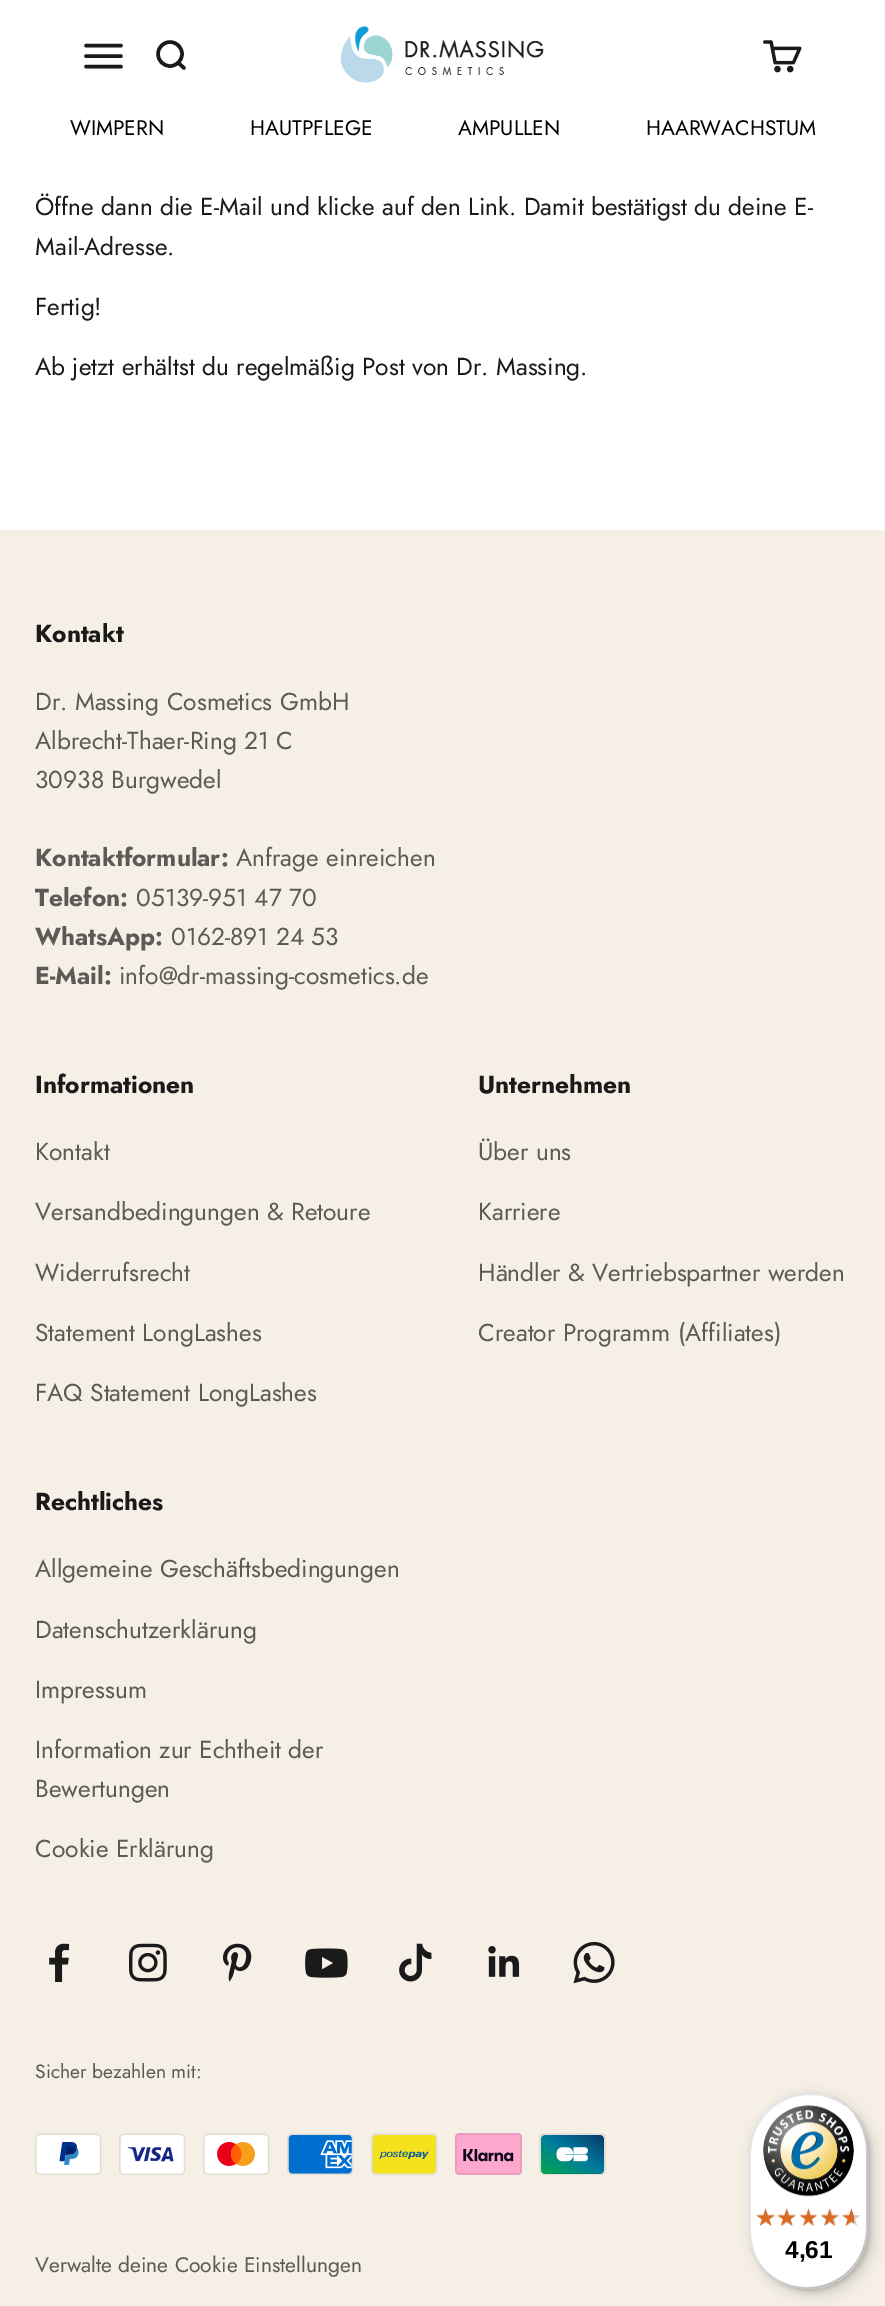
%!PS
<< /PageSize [885 2306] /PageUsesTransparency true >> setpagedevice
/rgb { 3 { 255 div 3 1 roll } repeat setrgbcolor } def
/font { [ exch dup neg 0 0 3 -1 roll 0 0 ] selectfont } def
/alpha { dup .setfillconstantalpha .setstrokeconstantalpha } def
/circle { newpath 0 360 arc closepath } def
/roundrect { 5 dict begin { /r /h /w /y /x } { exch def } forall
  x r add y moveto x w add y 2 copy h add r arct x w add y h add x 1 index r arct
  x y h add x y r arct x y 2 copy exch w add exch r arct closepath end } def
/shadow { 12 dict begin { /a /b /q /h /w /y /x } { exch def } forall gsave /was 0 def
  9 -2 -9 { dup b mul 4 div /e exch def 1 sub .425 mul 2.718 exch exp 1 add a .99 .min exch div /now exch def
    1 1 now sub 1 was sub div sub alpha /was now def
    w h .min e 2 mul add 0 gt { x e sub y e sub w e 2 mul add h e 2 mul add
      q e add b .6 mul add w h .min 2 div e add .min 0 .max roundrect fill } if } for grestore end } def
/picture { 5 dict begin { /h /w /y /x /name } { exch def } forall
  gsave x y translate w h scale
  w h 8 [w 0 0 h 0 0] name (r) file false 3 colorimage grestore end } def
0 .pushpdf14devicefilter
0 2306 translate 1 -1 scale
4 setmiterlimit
255 255 255 rgb
0 0 885 2306 rectfill
26 26 26 rgb
3.5 setlinewidth
1 setlinecap
86 45.5 moveto 121 45.5 lineto 86 56 moveto 121 56 lineto 86 66.5 moveto 121 66.5 lineto stroke
0 setlinecap
170 54 12 circle stroke
1 setlinecap
1 setlinejoin
178.5 63 moveto 184 68 lineto stroke
(img/1.rgb) 340 26 204 57 picture
(img/2.rgb) 763 40 39 33 picture
245 239 230 rgb
0 530 885 1776 rectfill
(img/3.rgb) 49 1943 21 39 picture
(img/4.rgb) 129 1943 38 39 picture
(img/5.rgb) 222 1943 30 39 picture
(img/6.rgb) 305 1948 43 30 picture
(img/7.rgb) 399 1943 33 39 picture
(img/8.rgb) 488 1946 32 31 picture
(img/9.rgb) 573 1941 42 43 picture
(img/10.rgb) 35 2133 67 42 picture
(img/11.rgb) 119 2133 67 42 picture
(img/12.rgb) 203 2133 67 42 picture
(img/13.rgb) 287 2133 67 42 picture
(img/14.rgb) 371 2133 67 42 picture
(img/15.rgb) 455 2133 67 42 picture
(img/16.rgb) 539 2133 67 42 picture
0 0 0 rgb
754 2098 119 196 59.5 7 0.15 shadow
751 2095 119 196 59.5 2 0.15 shadow
255 255 255 rgb
749 2093 119 196 59.5 roundrect fill
0.1 alpha
0 0 0 rgb
810 2095 moveto 826 2095 840 2101 851 2111 curveto 840 2100 825 2093 808 2093 curveto 776 2093 749 2120 749 2152 curveto 749 2230 lineto 749 2246 756 2261 767 2272 curveto 757 2261 751 2247 751 2231 curveto 751 2154 lineto 751 2121 777 2095 810 2095 curveto closepath fill
0.2 alpha
766 2271 moveto 777 2282 792 2289 808 2289 curveto 841 2289 868 2262 868 2230 curveto 868 2152 lineto 868 2136 861 2121 850 2110 curveto 860 2121 866 2135 866 2151 curveto 866 2228 lineto 866 2261 840 2287 807 2287 curveto 791 2287 777 2281 766 2271 curveto closepath fill
50 50 50 rgb
760 2264 moveto 771 2279 789 2289 808 2289 curveto 841 2289 868 2262 868 2230 curveto 868 2152 lineto 868 2133 858 2115 843 2104 curveto 858 2115 867 2132 867 2151 curveto 867 2228 lineto 867 2261 840 2288 807 2288 curveto 788 2288 771 2279 760 2264 curveto closepath fill
0.3 alpha
255 255 255 rgb
762 2266 moveto 772 2280 789 2289 808 2289 curveto 841 2289 868 2262 868 2230 curveto 868 2152 lineto 868 2133 859 2116 845 2106 curveto 858 2117 867 2133 867 2152 curveto 867 2229 lineto 867 2261 840 2288 808 2288 curveto 789 2288 773 2279 762 2266 curveto closepath fill
1 alpha
(img/17.rgb) 763 2105 91 92 picture
(img/18.rgb) 756 2209 19 17 picture
(img/19.rgb) 779 2208 17 18 picture
(img/20.rgb) 800 2209 17 17 picture
(img/21.rgb) 821 2208 19 18 picture
(img/22.rgb) 842 2209 19 17 picture
(img/23.rgb) 756 2208 19 18 picture
(img/24.rgb) 777 2208 19 18 picture
(img/25.rgb) 800 2208 17 18 picture
(img/26.rgb) 821 2208 17 18 picture
(img/27.rgb) 842 2208 12 18 picture
/Jost-Regular 21 font
0 0 0 rgb
[
  [(WIMPERN) 70 135]
  [(HAUTPFLEGE) 250 135]
  [(AMPULLEN) 458 135]
  [(HAARWACHSTUM) 646 135]
] { aload pop moveto show } forall
/Jost-Regular 24.5 font
26 26 26 rgb
[
  [(Öffne dann die E-Mail und klicke auf den Link. Damit bestätigst du deine E-) 35 215]
  [(Mail-Adresse.) 35 255]
  [(Fertig!) 35 315]
  [(Ab jetzt erhältst du regelmäßig Post von Dr. Massing.) 35 375]
] { aload pop moveto show } forall
/Jost-Bold 24.5 font
35 642 moveto (Kontakt) show
/Jost-Regular 24.5 font
92 90 87 rgb
[
  [(Dr. Massing Cosmetics GmbH) 35 710]
  [(Albrecht-Thaer-Ring 21 C) 35 749]
  [(30938 Burgwedel) 35 788]
] { aload pop moveto show } forall
/Jost-Bold 24.5 font
35 866 moveto (Kontaktformular:) show
/Jost-Regular 24.5 font
236 866 moveto (Anfrage einreichen) show
/Jost-Bold 24.5 font
35 906 moveto (Telefon:) show
/Jost-Regular 24.5 font
136 906 moveto (05139-951 47 70) show
/Jost-Bold 24.5 font
35 945 moveto (WhatsApp:) show
/Jost-Regular 24.5 font
171 945 moveto (0162-891 24 53) show
/Jost-Bold 24.5 font
35 984 moveto (E-Mail:) show
/Jost-Regular 24.5 font
119 984 moveto (info@dr-massing-cosmetics.de) show
/Jost-Bold 24.5 font
26 26 26 rgb
35 1093 moveto (Informationen) show
/Jost-Regular 24.5 font
92 90 87 rgb
[
  [(Kontakt) 35 1160]
  [(Versandbedingungen & Retoure) 35 1220]
  [(Widerrufsrecht) 35 1281]
  [(Statement LongLashes) 35 1341]
  [(FAQ Statement LongLashes) 35 1401]
] { aload pop moveto show } forall
/Jost-Bold 24.5 font
26 26 26 rgb
478 1093 moveto (Unternehmen) show
/Jost-Regular 24.5 font
92 90 87 rgb
[
  [(Über uns) 478 1160]
  [(Karriere) 478 1220]
  [(Händler & Vertriebspartner werden) 478 1281]
  [(Creator Programm \(Affiliates\)) 478 1341]
] { aload pop moveto show } forall
/Jost-Bold 24.5 font
26 26 26 rgb
35 1510 moveto (Rechtliches) show
/Jost-Regular 24.5 font
92 90 87 rgb
[
  [(Allgemeine Geschäftsbedingungen) 35 1577]
  [(Datenschutzerklärung) 35 1638]
  [(Impressum) 35 1698]
  [(Information zur Echtheit der) 35 1758]
  [(Bewertungen) 35 1797]
  [(Cookie Erklärung) 35 1857]
] { aload pop moveto show } forall
/Jost-Regular 19.25 font
35 2078 moveto (Sicher bezahlen mit:) show
/Jost-Regular 21 font
35 2272 moveto (Verwalte deine Cookie Einstellungen) show
/LiberationSans-Bold 24.5 font
0 0 0 rgb
785 2258 moveto (4,61) show
.poppdf14devicefilter showpage
